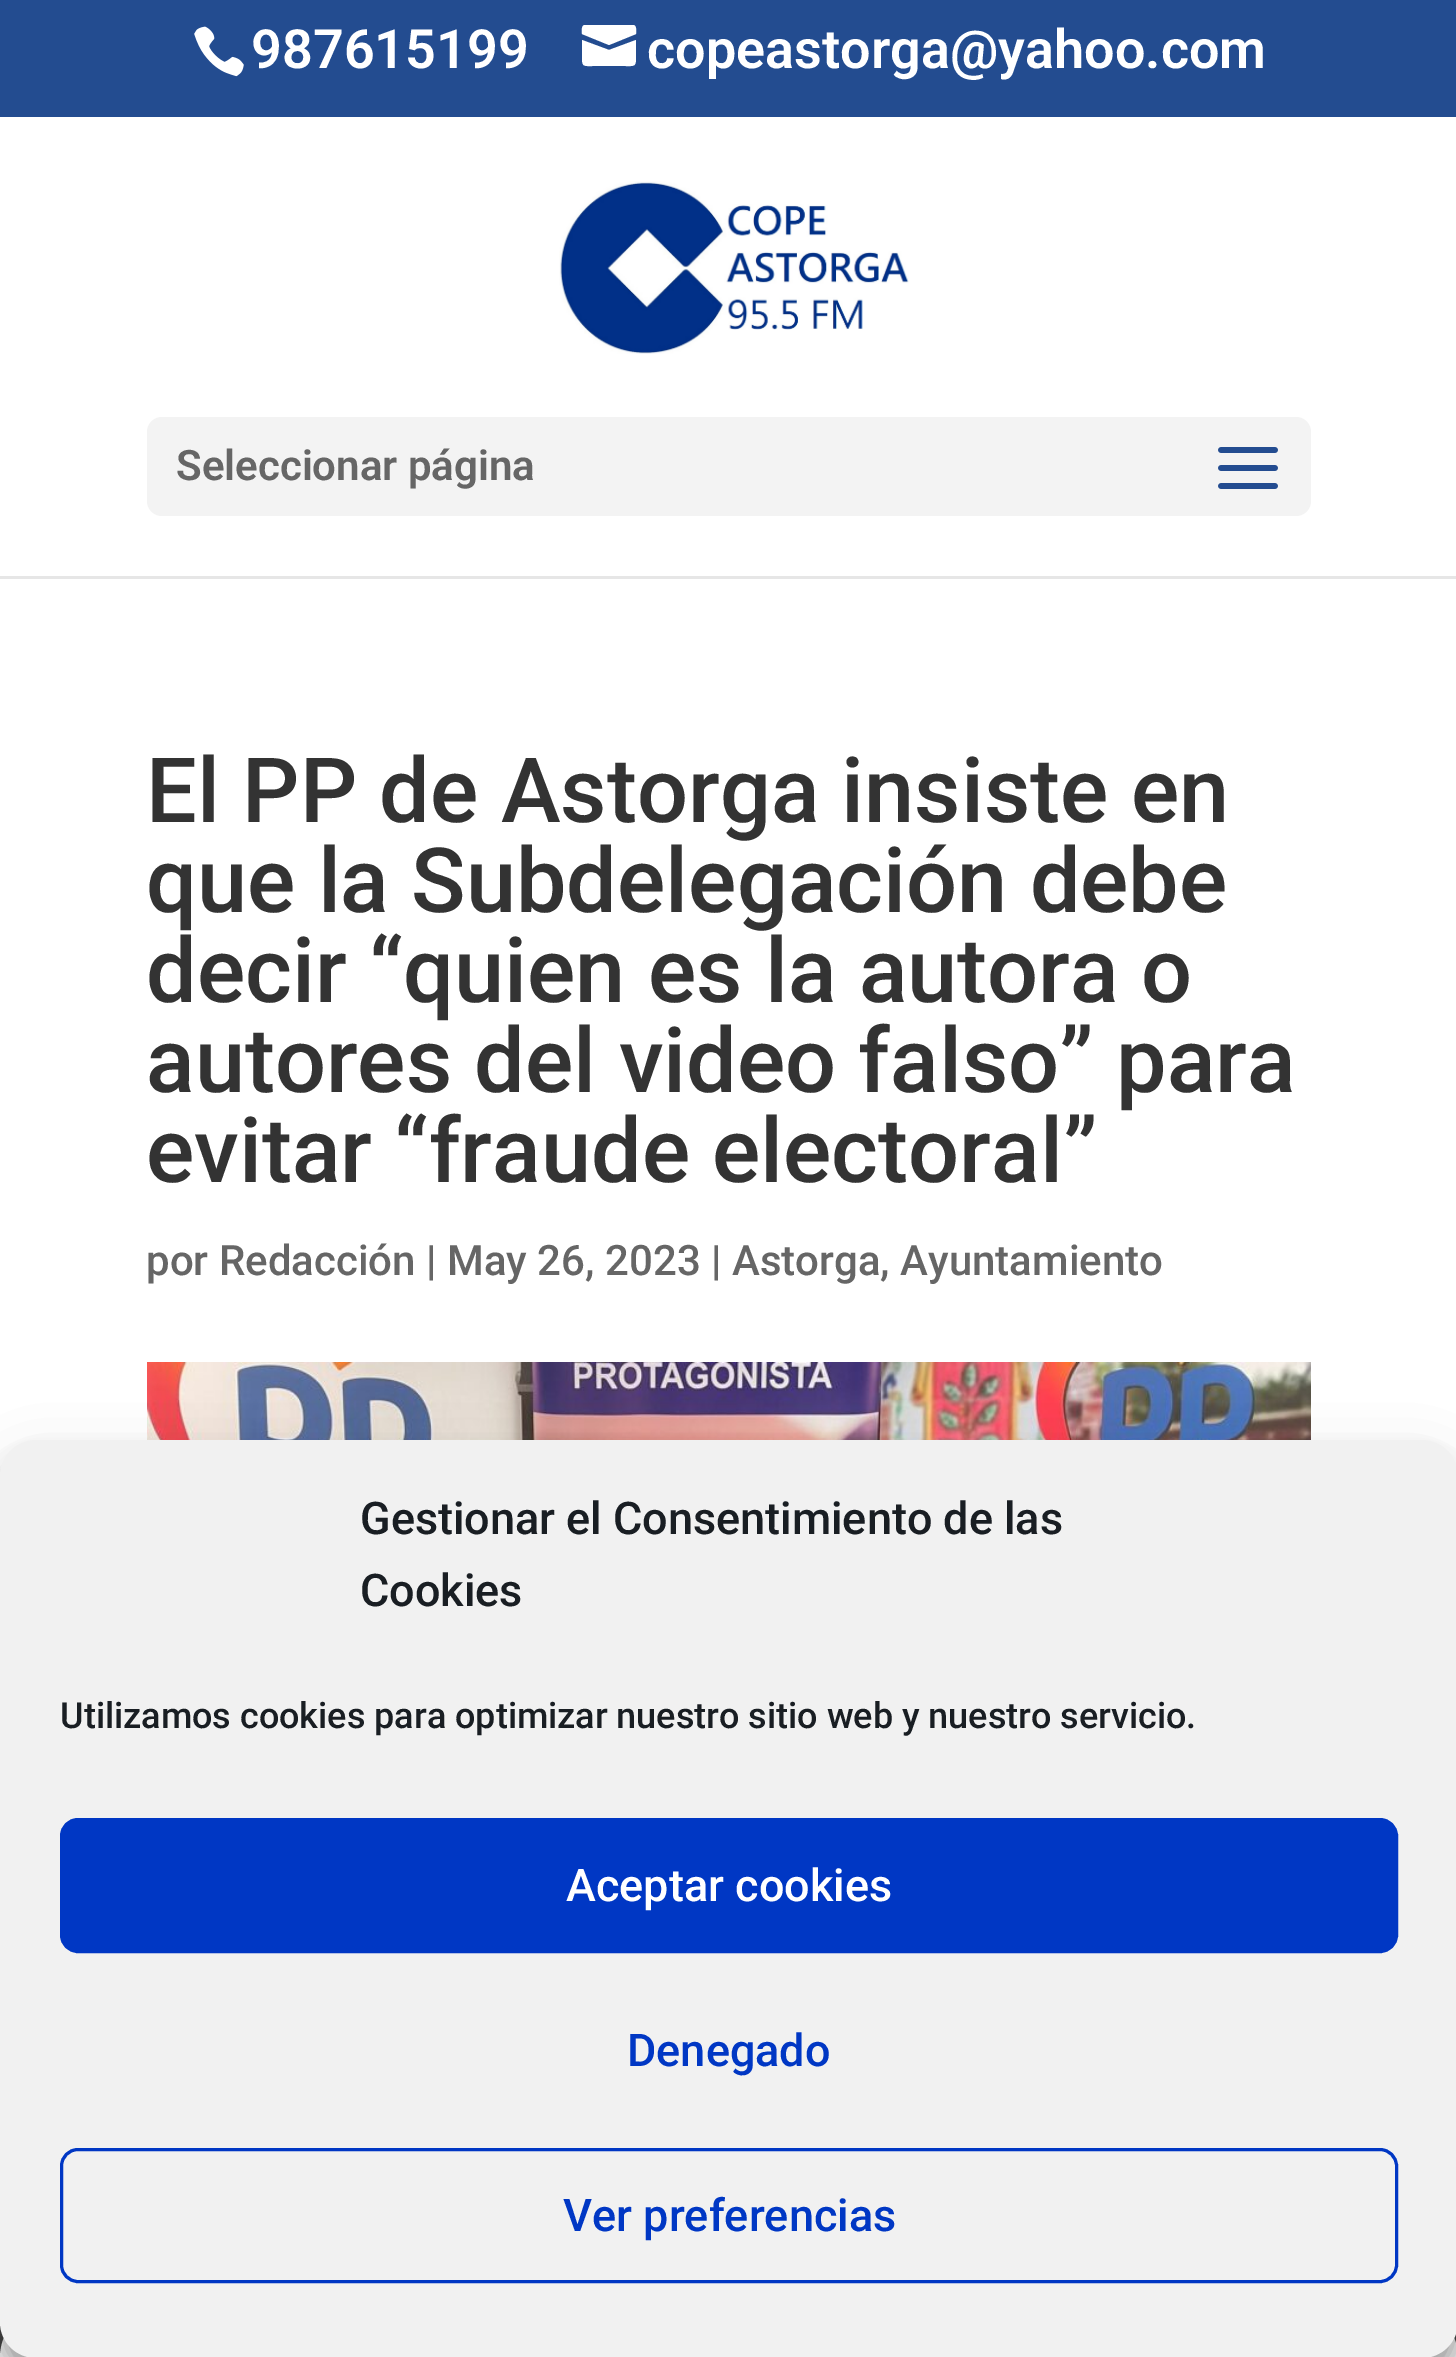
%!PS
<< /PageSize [1456 2357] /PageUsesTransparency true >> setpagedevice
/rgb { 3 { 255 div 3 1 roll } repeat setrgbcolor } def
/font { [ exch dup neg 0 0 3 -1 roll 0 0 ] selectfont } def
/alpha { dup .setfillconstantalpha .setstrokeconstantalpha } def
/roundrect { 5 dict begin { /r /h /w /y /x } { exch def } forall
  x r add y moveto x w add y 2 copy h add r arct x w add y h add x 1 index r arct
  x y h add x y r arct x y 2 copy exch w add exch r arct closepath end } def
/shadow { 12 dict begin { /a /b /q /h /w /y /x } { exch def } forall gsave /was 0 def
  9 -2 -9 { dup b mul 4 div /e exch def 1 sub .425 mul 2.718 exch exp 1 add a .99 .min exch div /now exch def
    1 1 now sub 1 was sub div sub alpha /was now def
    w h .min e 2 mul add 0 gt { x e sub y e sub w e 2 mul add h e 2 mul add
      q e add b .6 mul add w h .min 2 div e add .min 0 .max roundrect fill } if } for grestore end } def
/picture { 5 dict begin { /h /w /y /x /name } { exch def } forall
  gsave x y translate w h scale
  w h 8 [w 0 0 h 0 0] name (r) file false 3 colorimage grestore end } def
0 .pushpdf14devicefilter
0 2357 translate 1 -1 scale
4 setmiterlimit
255 255 255 rgb
0 0 1456 2357 rectfill
35 76 144 rgb
0 0 1456 117 rectfill
(img/1.rgb) 194 26 50 51 picture
255 255 255 rgb
633 25 moveto 585 25 lineto 581 25 582 31 582 34 curveto 609 45 lineto 636 34 lineto 636 31 637 25 633 25 curveto closepath 582 40 moveto 582 58 lineto 582 67 584 66 593 66 curveto 625 66 lineto 634 66 636 67 636 58 curveto 636 40 lineto 609 50 lineto closepath fill
230 230 230 rgb
0 576 1456 3 rectfill
(img/2.rgb) 559 181 350 173 picture
243 243 243 rgb
147 417 1164 99 15 roundrect fill
(img/3.rgb) 1218 447 60 42 picture
(img/4.rgb) 147 1362 1164 78 picture
71 71 71 rgb
0 2322 1456 35 rectfill
255 255 255 rgb
54 2304 moveto 1404 2304 lineto 1434 2304 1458 2328 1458 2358 curveto 0 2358 lineto 0 2328 24 2304 54 2304 curveto closepath fill
0 0 0 rgb
0 1458 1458 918 36 9 0.23 shadow
0 1470 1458 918 36 30 0.19 shadow
241 241 241 rgb
0 1440 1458 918 36 roundrect fill
0 55 196 rgb
61.5 1819.5 1335 132 16.5 roundrect gsave fill grestore
3 setlinewidth
stroke
61.5 2149.5 1335 132 16.5 roundrect stroke
/Roboto-SemiBold 54 font
255 255 255 rgb
251 68 moveto (987615199) show
647 68 moveto (copeastorga@yahoo.com) show
/Roboto-SemiBold 42 font
102 102 102 rgb
176 480 moveto (Seleccionar página) show
/Roboto-Medium 90 font
51 51 51 rgb
[
  [(El PP de Astorga insiste en) 146 822]
  [(que la Subdelegación debe) 146 912]
  [(decir “quien es la autora o) 146 1002]
  [(autores del video falso” para) 146 1092]
  [(evitar “fraude electoral”) 146 1182]
] { aload pop moveto show } forall
/Roboto-Medium 42 font
102 102 102 rgb
146 1275 moveto (por Redacción | May 26, 2023 | Astorga, Ayuntamiento) show
/Roboto-Medium 45 font
25 30 35 rgb
360 1534 moveto (Gestionar el Consentimiento de las) show
360 1606 moveto (Cookies) show
/Roboto-Medium 36 font
60 1728 moveto (Utilizamos cookies para optimizar nuestro sitio web y nuestro servicio.) show
/Roboto-Medium 45 font
255 255 255 rgb
566 1901 moveto (Aceptar cookies) show
0 55 196 rgb
627 2066 moveto (Denegado) show
563 2231 moveto (Ver preferencias) show
.poppdf14devicefilter showpage
